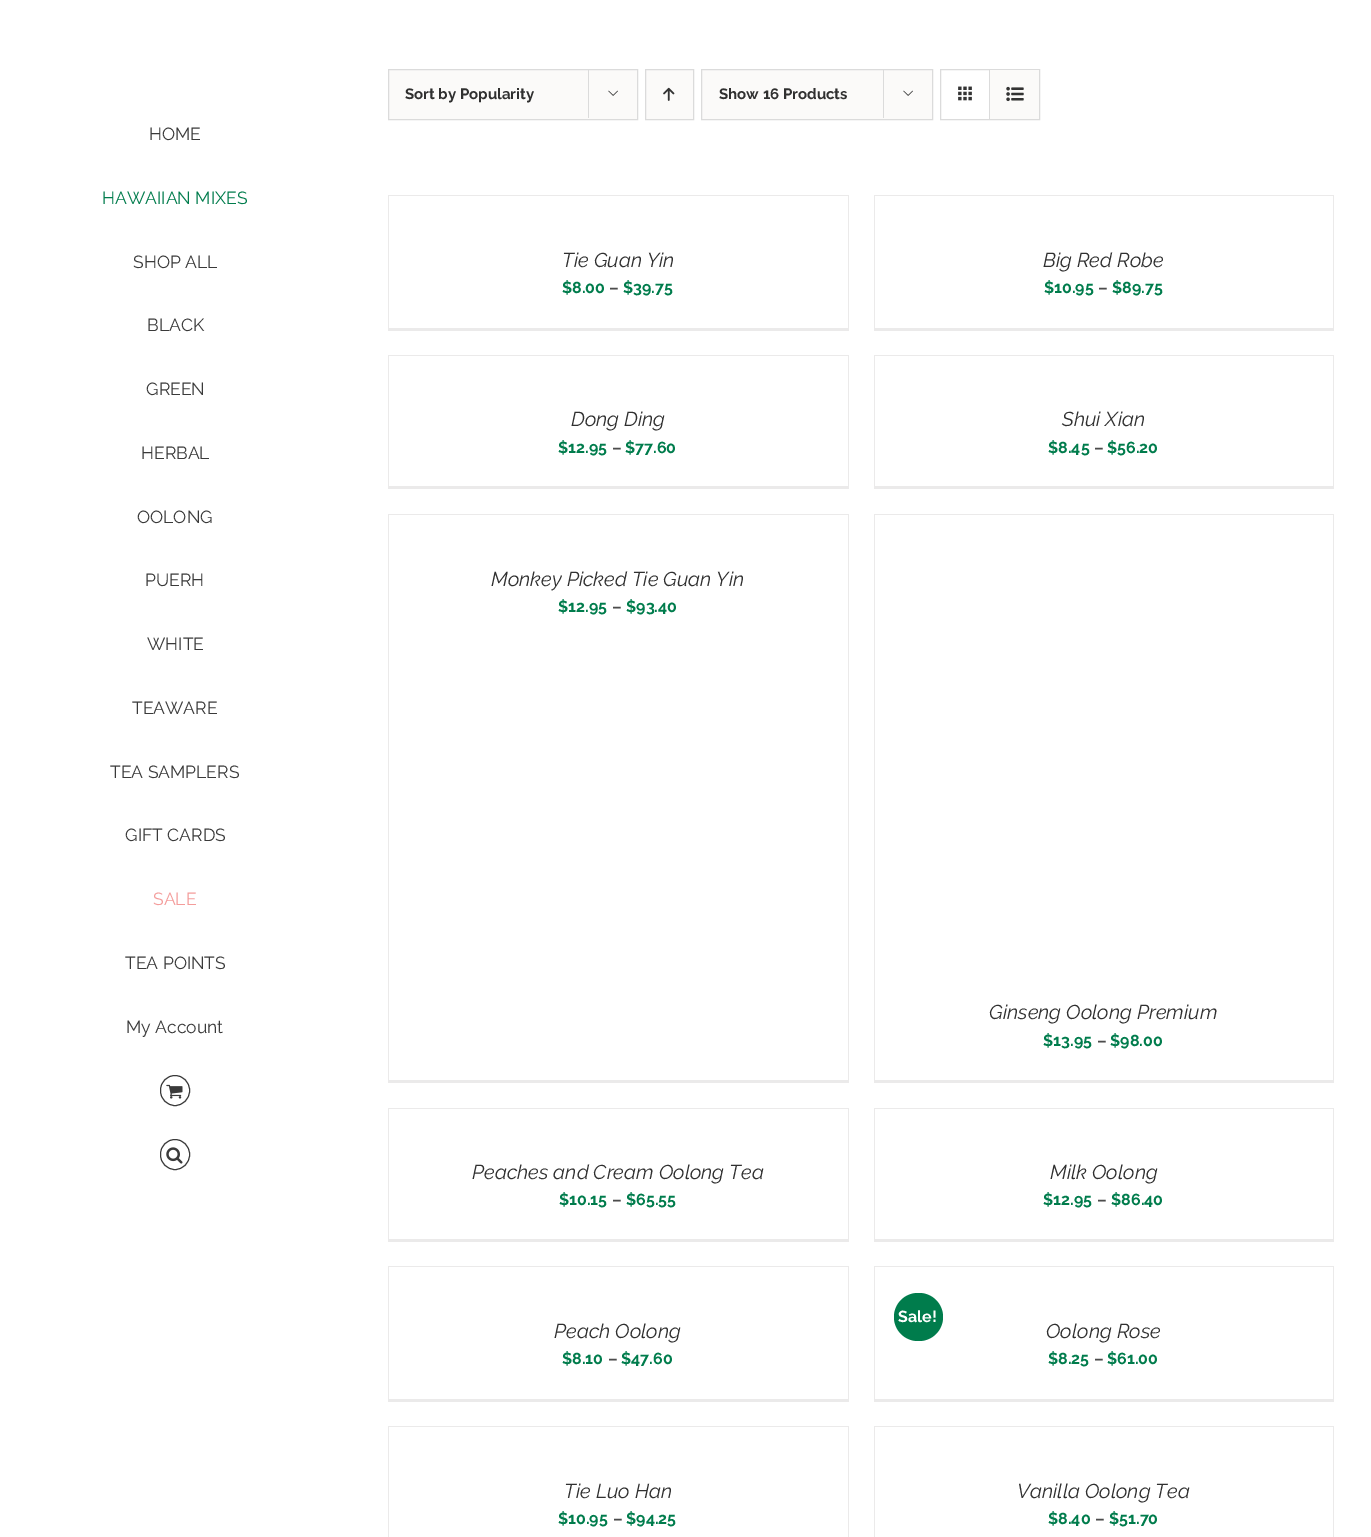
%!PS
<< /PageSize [1371 1537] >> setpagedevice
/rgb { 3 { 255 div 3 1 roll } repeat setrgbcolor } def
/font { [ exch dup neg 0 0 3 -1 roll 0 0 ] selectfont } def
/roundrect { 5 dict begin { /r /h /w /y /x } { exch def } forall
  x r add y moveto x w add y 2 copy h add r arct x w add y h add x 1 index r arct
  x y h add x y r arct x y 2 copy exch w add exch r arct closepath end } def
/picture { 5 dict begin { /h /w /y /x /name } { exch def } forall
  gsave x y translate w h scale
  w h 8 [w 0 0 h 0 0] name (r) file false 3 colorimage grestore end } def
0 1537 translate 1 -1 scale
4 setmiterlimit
255 255 255 rgb
0 0 1371 1537 rectfill
58 58 58 rgb
160.5 1075.5 29 30 14.5 roundrect stroke
(img/1.rgb) 166 1084 17 15 picture
160.5 1139.5 29 30 14.5 roundrect stroke
(img/2.rgb) 166 1147 17 17 picture
251 250 249 rgb
388.5 69.5 moveto 637.5 69.5 lineto 637.5 119.5 lineto 388.5 119.5 lineto closepath gsave fill grestore
219 219 219 rgb
stroke
588 69 1 49 rectfill
(img/3.rgb) 608 90 10 6 picture
251 250 249 rgb
645.5 69.5 moveto 693.5 69.5 lineto 693.5 119.5 lineto 645.5 119.5 lineto closepath gsave fill grestore
219 219 219 rgb
stroke
(img/4.rgb) 663 87 12 14 picture
251 250 249 rgb
701.5 69.5 moveto 932.5 69.5 lineto 932.5 119.5 lineto 701.5 119.5 lineto closepath gsave fill grestore
219 219 219 rgb
stroke
883 69 1 49 rectfill
(img/3.rgb) 903 90 10 6 picture
940.5 69.5 99 50 rectstroke
989 70 1 49 rectfill
(img/5.rgb) 958 86 14 15 picture
251 250 249 rgb
990 70 49 49 rectfill
(img/6.rgb) 1006 86 18 16 picture
[
  [388 195 461 1 235 234 234]
  [848 195 1 135 235 234 234]
  [388 328 461 3 235 234 234]
  [388 195 1 135 235 234 234]
  [874 195 460 1 235 234 234]
  [1333 195 1 135 235 234 234]
  [874 328 460 3 235 234 234]
  [874 195 1 135 235 234 234]
  [388 355 461 1 235 234 234]
  [848 355 1 134 235 234 234]
  [388 486 461 3 235 234 234]
  [388 355 1 134 235 234 234]
  [874 355 460 1 235 234 234]
  [1333 355 1 134 235 234 234]
  [874 486 460 3 235 234 234]
  [874 355 1 134 235 234 234]
  [388 514 461 1 235 234 234]
  [848 514 1 569 235 234 234]
  [388 1080 461 3 235 234 234]
  [388 514 1 569 235 234 234]
  [874 514 460 1 235 234 234]
  [1333 514 1 569 235 234 234]
  [874 1080 460 3 235 234 234]
  [874 514 1 569 235 234 234]
  [388 1108 461 1 235 234 234]
  [848 1108 1 133 235 234 234]
  [388 1239 461 3 235 234 234]
  [388 1108 1 133 235 234 234]
  [874 1108 460 1 235 234 234]
  [1333 1108 1 133 235 234 234]
  [874 1239 460 3 235 234 234]
  [874 1108 1 133 235 234 234]
  [388 1266 461 1 235 234 234]
  [848 1266 1 135 235 234 234]
  [388 1399 461 3 235 234 234]
  [388 1266 1 135 235 234 234]
  [874 1266 460 1 235 234 234]
  [1333 1266 1 135 235 234 234]
  [874 1399 460 3 235 234 234]
  [874 1266 1 135 235 234 234]
] { aload pop rgb rectfill } forall
0 124 76 rgb
894 1293 49 48 24 roundrect fill
[
  [388 1426 461 1 235 234 234]
  [848 1426 1 111 235 234 234]
  [388 1426 1 111 235 234 234]
  [874 1426 460 1 235 234 234]
  [1333 1426 1 111 235 234 234]
  [874 1426 1 111 235 234 234]
] { aload pop rgb rectfill } forall
/Raleway-Regular 17.5 font
58 58 58 rgb
149 140 moveto (HOME) show
0 124 76 rgb
102 204 moveto (HAWAIIAN MIXES) show
58 58 58 rgb
[
  [(SHOP ALL) 133 268]
  [(BLACK) 147 331]
  [(GREEN) 146 395]
  [(HERBAL) 141 459]
  [(OOLONG) 137 523]
  [(PUERH) 145 586]
  [(WHITE) 147 650]
  [(TEAWARE) 132 714]
  [(TEA SAMPLERS) 110 778]
  [(GIFT CARDS) 125 841]
] { aload pop moveto show } forall
244 156 155 rgb
153 905 moveto (SALE) show
58 58 58 rgb
125 969 moveto (TEA POINTS) show
126 1033 moveto (My Account) show
/Raleway-Bold 15 font
48 48 48 rgb
405 99 moveto (Sort by Popularity) show
719 99 moveto (Show 16 Products) show
/Raleway-Italic 20 font
562 267 moveto (Tie Guan Yin) show
/Raleway-Bold 16 font
0 124 76 rgb
562 293 moveto ($8.00) show
76 76 76 rgb
609 293 moveto (–) show
0 124 76 rgb
623 293 moveto ($39.75) show
/Raleway-Italic 20 font
48 48 48 rgb
1043 267 moveto (Big Red Robe) show
/Raleway-Bold 16 font
0 124 76 rgb
1044 293 moveto ($10.95) show
76 76 76 rgb
1098 293 moveto (–) show
0 124 76 rgb
1112 293 moveto ($89.75) show
/Raleway-Italic 20 font
48 48 48 rgb
571 426 moveto (Dong Ding) show
/Raleway-Bold 16 font
0 124 76 rgb
558 453 moveto ($12.95) show
76 76 76 rgb
612 453 moveto (–) show
0 124 76 rgb
625 453 moveto ($77.60) show
/Raleway-Italic 20 font
48 48 48 rgb
1062 426 moveto (Shui Xian) show
/Raleway-Bold 16 font
0 124 76 rgb
1048 453 moveto ($8.45) show
76 76 76 rgb
1094 453 moveto (–) show
0 124 76 rgb
1107 453 moveto ($56.20) show
/Raleway-Italic 20 font
48 48 48 rgb
491 586 moveto (Monkey Picked Tie Guan Yin) show
/Raleway-Bold 16 font
0 124 76 rgb
558 612 moveto ($12.95) show
76 76 76 rgb
612 612 moveto (–) show
0 124 76 rgb
626 612 moveto ($93.40) show
/Raleway-Italic 20 font
48 48 48 rgb
989 1019 moveto (Ginseng Oolong Premium) show
/Raleway-Bold 16 font
0 124 76 rgb
1043 1046 moveto ($13.95) show
76 76 76 rgb
1097 1046 moveto (–) show
0 124 76 rgb
1110 1046 moveto ($98.00) show
/Raleway-Italic 20 font
48 48 48 rgb
472 1179 moveto (Peaches and Cream Oolong Tea) show
/Raleway-Bold 16 font
0 124 76 rgb
559 1205 moveto ($10.15) show
76 76 76 rgb
612 1205 moveto (–) show
0 124 76 rgb
626 1205 moveto ($65.55) show
/Raleway-Italic 20 font
48 48 48 rgb
1050 1179 moveto (Milk Oolong) show
/Raleway-Bold 16 font
0 124 76 rgb
1043 1205 moveto ($12.95) show
76 76 76 rgb
1097 1205 moveto (–) show
0 124 76 rgb
1111 1205 moveto ($86.40) show
/Raleway-Italic 20 font
48 48 48 rgb
554 1338 moveto (Peach Oolong) show
/Raleway-Bold 16 font
0 124 76 rgb
562 1364 moveto ($8.10) show
76 76 76 rgb
608 1364 moveto (–) show
0 124 76 rgb
621 1364 moveto ($47.60) show
255 255 255 rgb
898 1322 moveto (Sale!) show
/Raleway-Italic 20 font
48 48 48 rgb
1046 1338 moveto (Oolong Rose) show
/Raleway-Bold 16 font
0 124 76 rgb
1048 1364 moveto ($8.25) show
76 76 76 rgb
1094 1364 moveto (–) show
0 124 76 rgb
1107 1364 moveto ($61.00) show
/Raleway-Italic 20 font
48 48 48 rgb
564 1498 moveto (Tie Luo Han) show
/Raleway-Bold 16 font
0 124 76 rgb
558 1524 moveto ($10.95) show
76 76 76 rgb
613 1524 moveto (–) show
0 124 76 rgb
626 1524 moveto ($94.25) show
/Raleway-Italic 20 font
48 48 48 rgb
1017 1498 moveto (Vanilla Oolong Tea) show
/Raleway-Bold 16 font
0 124 76 rgb
1048 1524 moveto ($8.40) show
76 76 76 rgb
1095 1524 moveto (–) show
0 124 76 rgb
1109 1524 moveto ($51.70) show
showpage
